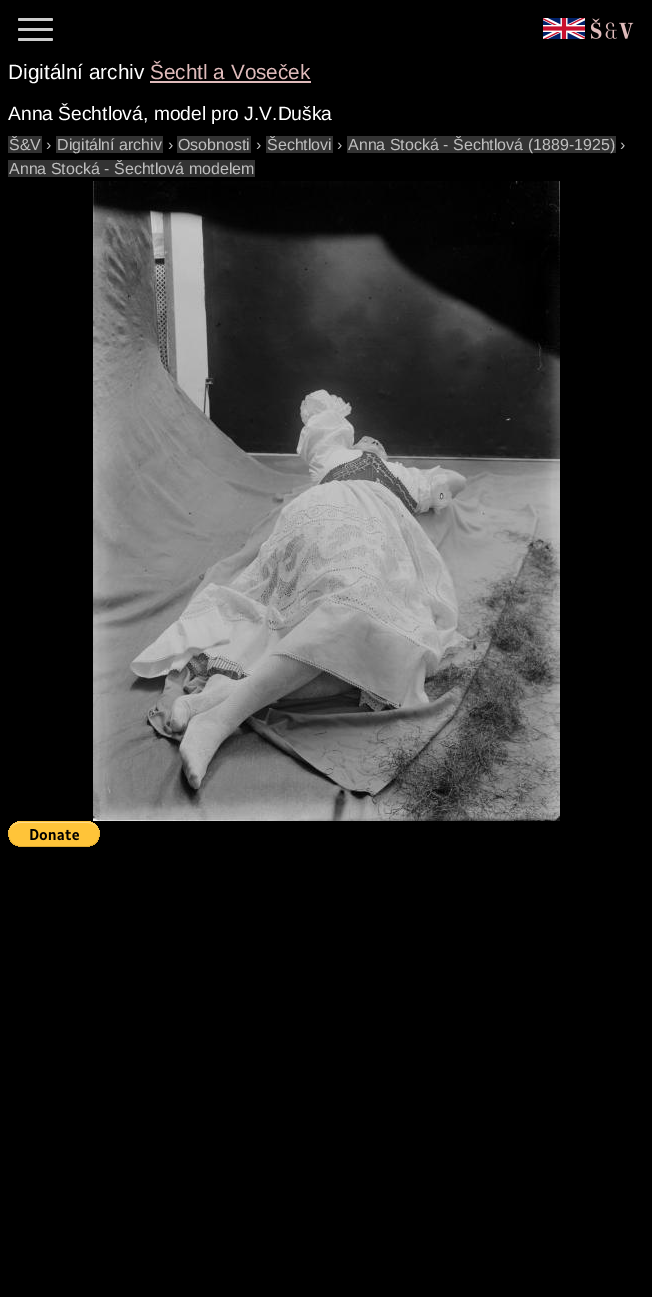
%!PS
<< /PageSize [652 1297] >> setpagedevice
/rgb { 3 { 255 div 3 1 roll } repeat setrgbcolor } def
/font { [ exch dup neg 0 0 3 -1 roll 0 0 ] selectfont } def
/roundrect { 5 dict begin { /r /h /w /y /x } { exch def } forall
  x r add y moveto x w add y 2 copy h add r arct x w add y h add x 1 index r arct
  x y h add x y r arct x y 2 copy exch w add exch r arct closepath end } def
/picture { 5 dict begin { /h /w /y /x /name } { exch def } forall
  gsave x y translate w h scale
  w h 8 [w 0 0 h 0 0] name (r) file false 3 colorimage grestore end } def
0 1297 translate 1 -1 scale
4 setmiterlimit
0 0 0 rgb
0 0 652 1297 rectfill
205 205 205 rgb
18 18 35 3 1.5 roundrect fill
(img/1.rgb) 543 18 42 21 picture
(img/2.rgb) 590 18 44 21 picture
18 28 35 3 1.5 roundrect fill
18 38 35 3 1.5 roundrect fill
[
  [150 81 161 2 223 187 187]
  [8 136 34 17 51 51 51]
  [56 136 107 17 51 51 51]
  [177 136 74 17 51 51 51]
  [266 136 67 17 51 51 51]
  [347 136 269 17 51 51 51]
  [8 160 247 17 51 51 51]
] { aload pop rgb rectfill } forall
(img/3.rgb) 93 181 467 640 picture
(img/4.rgb) 8 821 92 26 picture
/LiberationSans-Regular 20.75 font
255 255 255 rgb
8 79 moveto (Digitální archiv) show
223 187 187 rgb
150 79 moveto (Šechtl a Voseček) show
/LiberationSans-Regular 19.25 font
255 255 255 rgb
8 120 moveto (Anna Šechtlová, model pro J.V.Duška) show
/LiberationSans-Regular 16 font
191 191 191 rgb
[
  [(Š&V) 9 150]
  [(›) 46 150]
  [(Digitální archiv) 57 150]
  [(›) 168 150]
  [(Osobnosti) 178 150]
  [(›) 256 150]
  [(Šechtlovi) 267 150]
  [(›) 337 150]
  [(Anna Stocká - Šechtlová \(1889-1925\)) 348 150]
  [(›) 620 150]
  [(Anna Stocká - Šechtlová modelem) 9 174]
] { aload pop moveto show } forall
showpage
